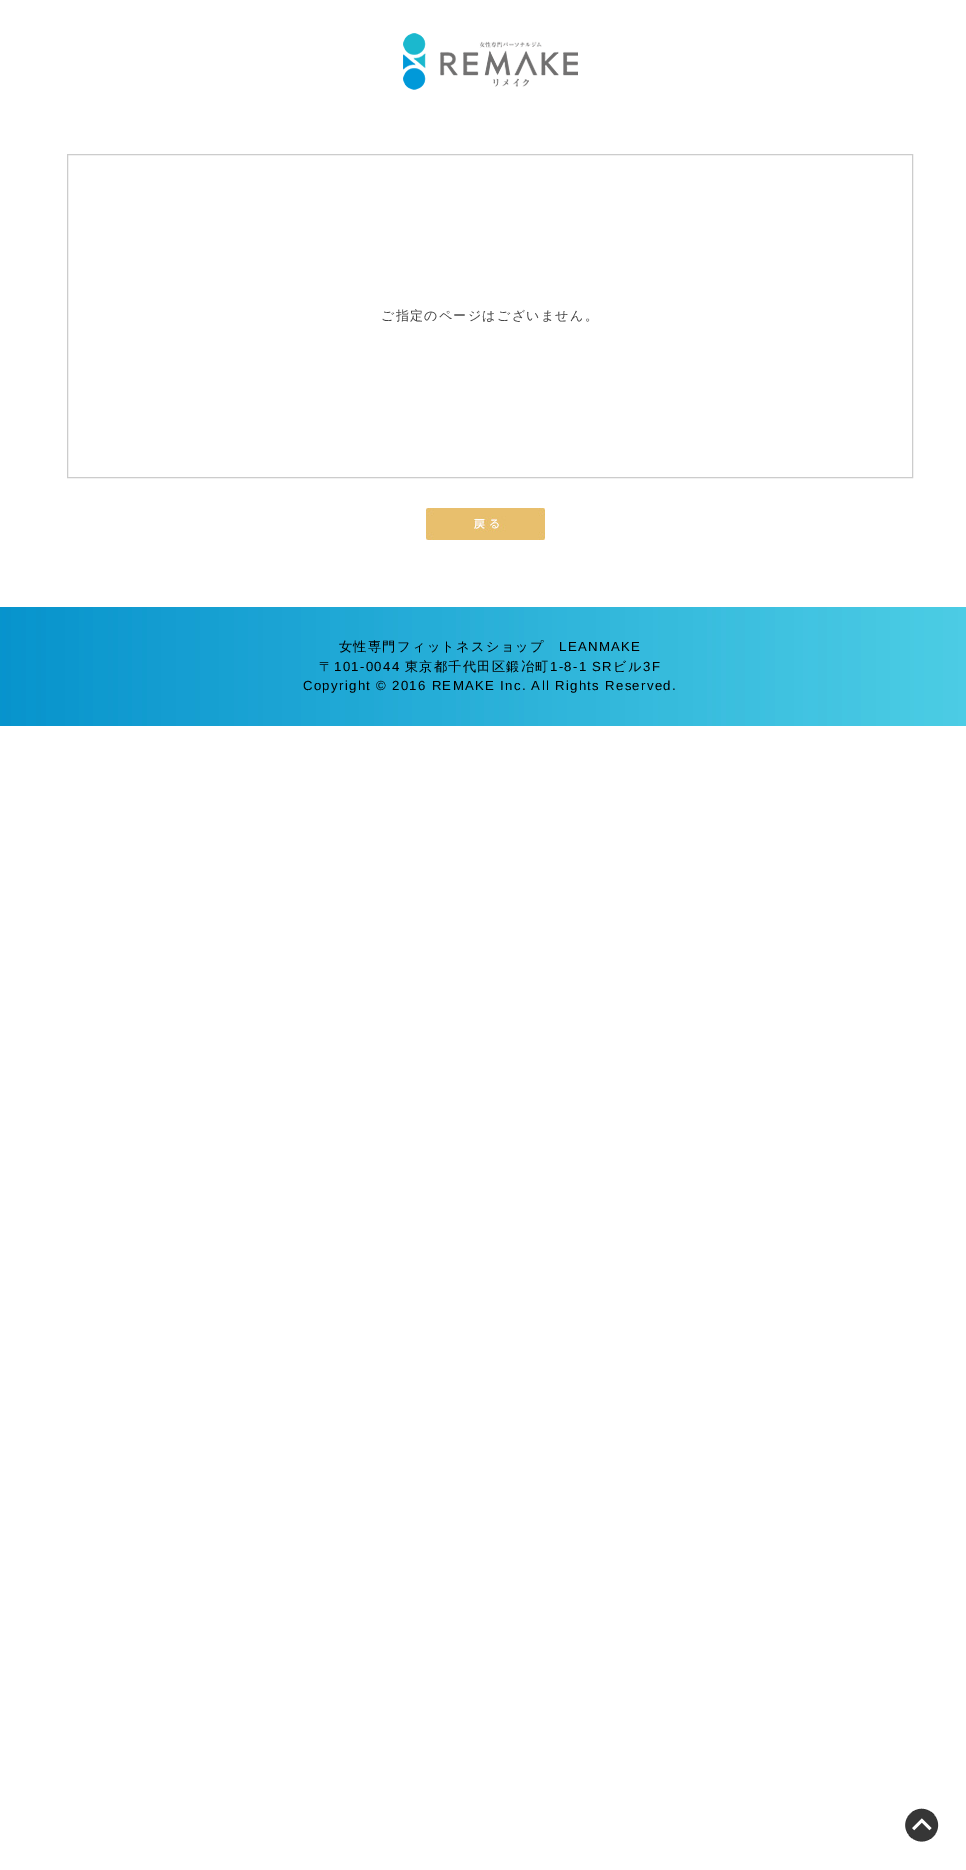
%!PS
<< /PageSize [966 1870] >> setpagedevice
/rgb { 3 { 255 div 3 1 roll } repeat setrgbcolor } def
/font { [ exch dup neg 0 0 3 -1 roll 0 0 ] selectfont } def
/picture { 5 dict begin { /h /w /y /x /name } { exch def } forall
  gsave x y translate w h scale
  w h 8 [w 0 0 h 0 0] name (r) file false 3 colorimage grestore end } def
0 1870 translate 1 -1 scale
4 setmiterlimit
255 255 255 rgb
0 0 966 1870 rectfill
(img/1.rgb) 403 33 175 57 picture
204 204 204 rgb
67.5 154.5 845 323 rectstroke
(img/2.rgb) 426 508 119 32 picture
(img/3.rgb) 0 607 966 119 picture
(img/4.rgb) 905 1808 34 34 picture
/WenQuanYiZenHei-Medium 13 font
68 68 68 rgb
381 320 moveto 1.3 0 (ご指定のページはございません。) ashow
/WenQuanYiZenHei-Medium 13.2 font
0 0 0 rgb
339 651 moveto 1.3 0 (女性専門フィットネスショップ) ashow
/LiberationSans-Regular 13.2 font
559 651 moveto 1.3 0 (LEANMAKE) ashow
/WenQuanYiZenHei-Medium 13.2 font
319 671 moveto 1.3 0 (〒) ashow
/LiberationSans-Regular 13.2 font
334 671 moveto 1.3 0 (101-0044) ashow
/WenQuanYiZenHei-Medium 13.2 font
405 671 moveto 1.3 0 (東京都千代田区鍛冶町) ashow
/LiberationSans-Regular 13.2 font
550 671 moveto 1.3 0 (1-8-1 SR) ashow
/WenQuanYiZenHei-Medium 13.2 font
613 671 moveto 1.3 0 (ビル) ashow
/LiberationSans-Regular 13.2 font
643 671 moveto 1.3 0 (3F) ashow
303 690 moveto 1.3 0 (Copyright © 2016 REMAKE Inc. All Rights Reserved.) ashow
showpage
